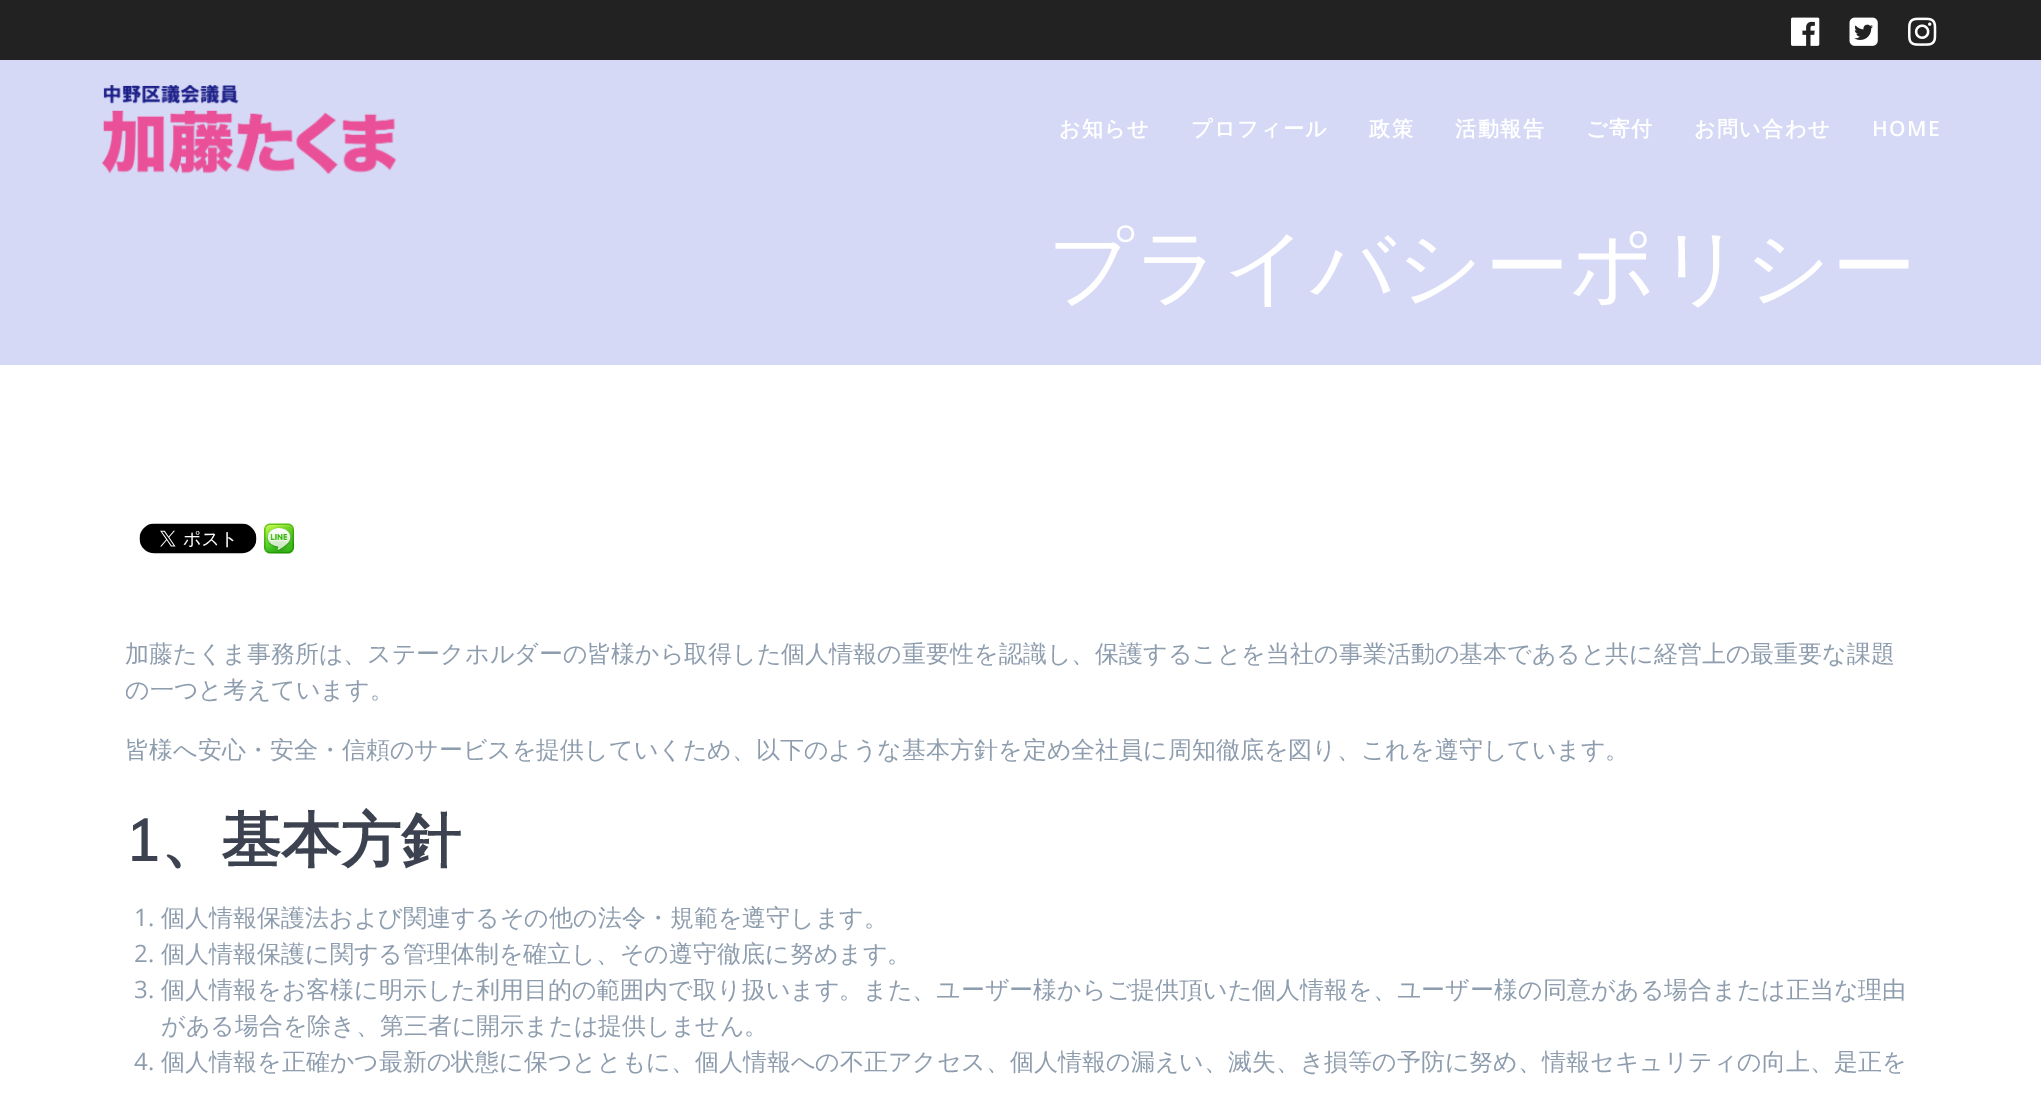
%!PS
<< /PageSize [2041 1100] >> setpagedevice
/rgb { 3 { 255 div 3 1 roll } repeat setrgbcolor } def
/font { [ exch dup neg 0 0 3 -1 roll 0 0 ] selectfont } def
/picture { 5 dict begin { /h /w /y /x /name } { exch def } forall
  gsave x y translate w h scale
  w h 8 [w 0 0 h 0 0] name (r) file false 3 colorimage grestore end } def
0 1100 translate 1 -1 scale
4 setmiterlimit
255 255 255 rgb
0 0 2041 1100 rectfill
34 34 34 rgb
0 0 2041 60 rectfill
(img/1.rgb) 1791 17 29 29 picture
(img/2.rgb) 1849 17 29 29 picture
(img/3.rgb) 1908 17 29 29 picture
214 217 246 rgb
0 60 2041 305 rectfill
(img/4.rgb) 102 84 294 90 picture
(img/5.rgb) 139 523 118 31 picture
(img/6.rgb) 264 523 30 31 picture
/WenQuanYiZenHei-Bold 21 font
255 255 255 rgb
1059 136 moveto 1.5 0 (お知らせ) ashow
1191 136 moveto 1.5 0 (プロフィール) ashow
1369 136 moveto 1.5 0 (政策) ashow
1455 136 moveto 1.5 0 (活動報告) ashow
1586 136 moveto 1.5 0 (ご寄付) ashow
1694 136 moveto 1.5 0 (お問い合わせ) ashow
/OpenSans-SemiBold 21 font
1872 136 moveto 1.5 0 (HOME) ashow
/WenQuanYiZenHei-Medium 84 font
1048 296 moveto 1.4 0 (プライバシーポリシー) ashow
/WenQuanYiZenHei-Medium 24 font
142 157 174 rgb
[
  [(加藤たくま事務所は、ステークホルダーの皆様から取得した個人情報の重要性を認識し、保護することを当社の事業活動の基本であると共に経営上の最重要な課題) 125 662]
  [(の一つと考えています。) 125 698]
  [(皆様へ安心・安全・信頼のサービスを提供していくため、以下のような基本方針を定め全社員に周知徹底を図り、これを遵守しています。) 125 758]
] { aload pop moveto show } forall
/Muli-SemiBold 60 font
60 66 79 rgb
125 861 moveto (1) show
/WenQuanYiZenHei-Bold 60 font
161 861 moveto (、基本方針) show
/OpenSans-Regular 24 font
142 157 174 rgb
134 926 moveto (1.) show
/WenQuanYiZenHei-Medium 24 font
161 926 moveto (個人情報保護法および関連するその他の法令・規範を遵守します。) show
/OpenSans-Regular 24 font
134 962 moveto (2.) show
/WenQuanYiZenHei-Medium 24 font
161 962 moveto (個人情報保護に関する管理体制を確立し、その遵守徹底に努めます。) show
/OpenSans-Regular 24 font
134 998 moveto (3.) show
/WenQuanYiZenHei-Medium 24 font
161 998 moveto (個人情報をお客様に明示した利用目的の範囲内で取り扱います。また、ユーザー様からご提供頂いた個人情報を、ユーザー様の同意がある場合または正当な理由) show
161 1034 moveto (がある場合を除き、第三者に開示または提供しません。) show
/OpenSans-Regular 24 font
134 1070 moveto (4.) show
/WenQuanYiZenHei-Medium 24 font
161 1070 moveto (個人情報を正確かつ最新の状態に保つとともに、個人情報への不正アクセス、個人情報の漏えい、滅失、き損等の予防に努め、情報セキュリティの向上、是正を) show
showpage
